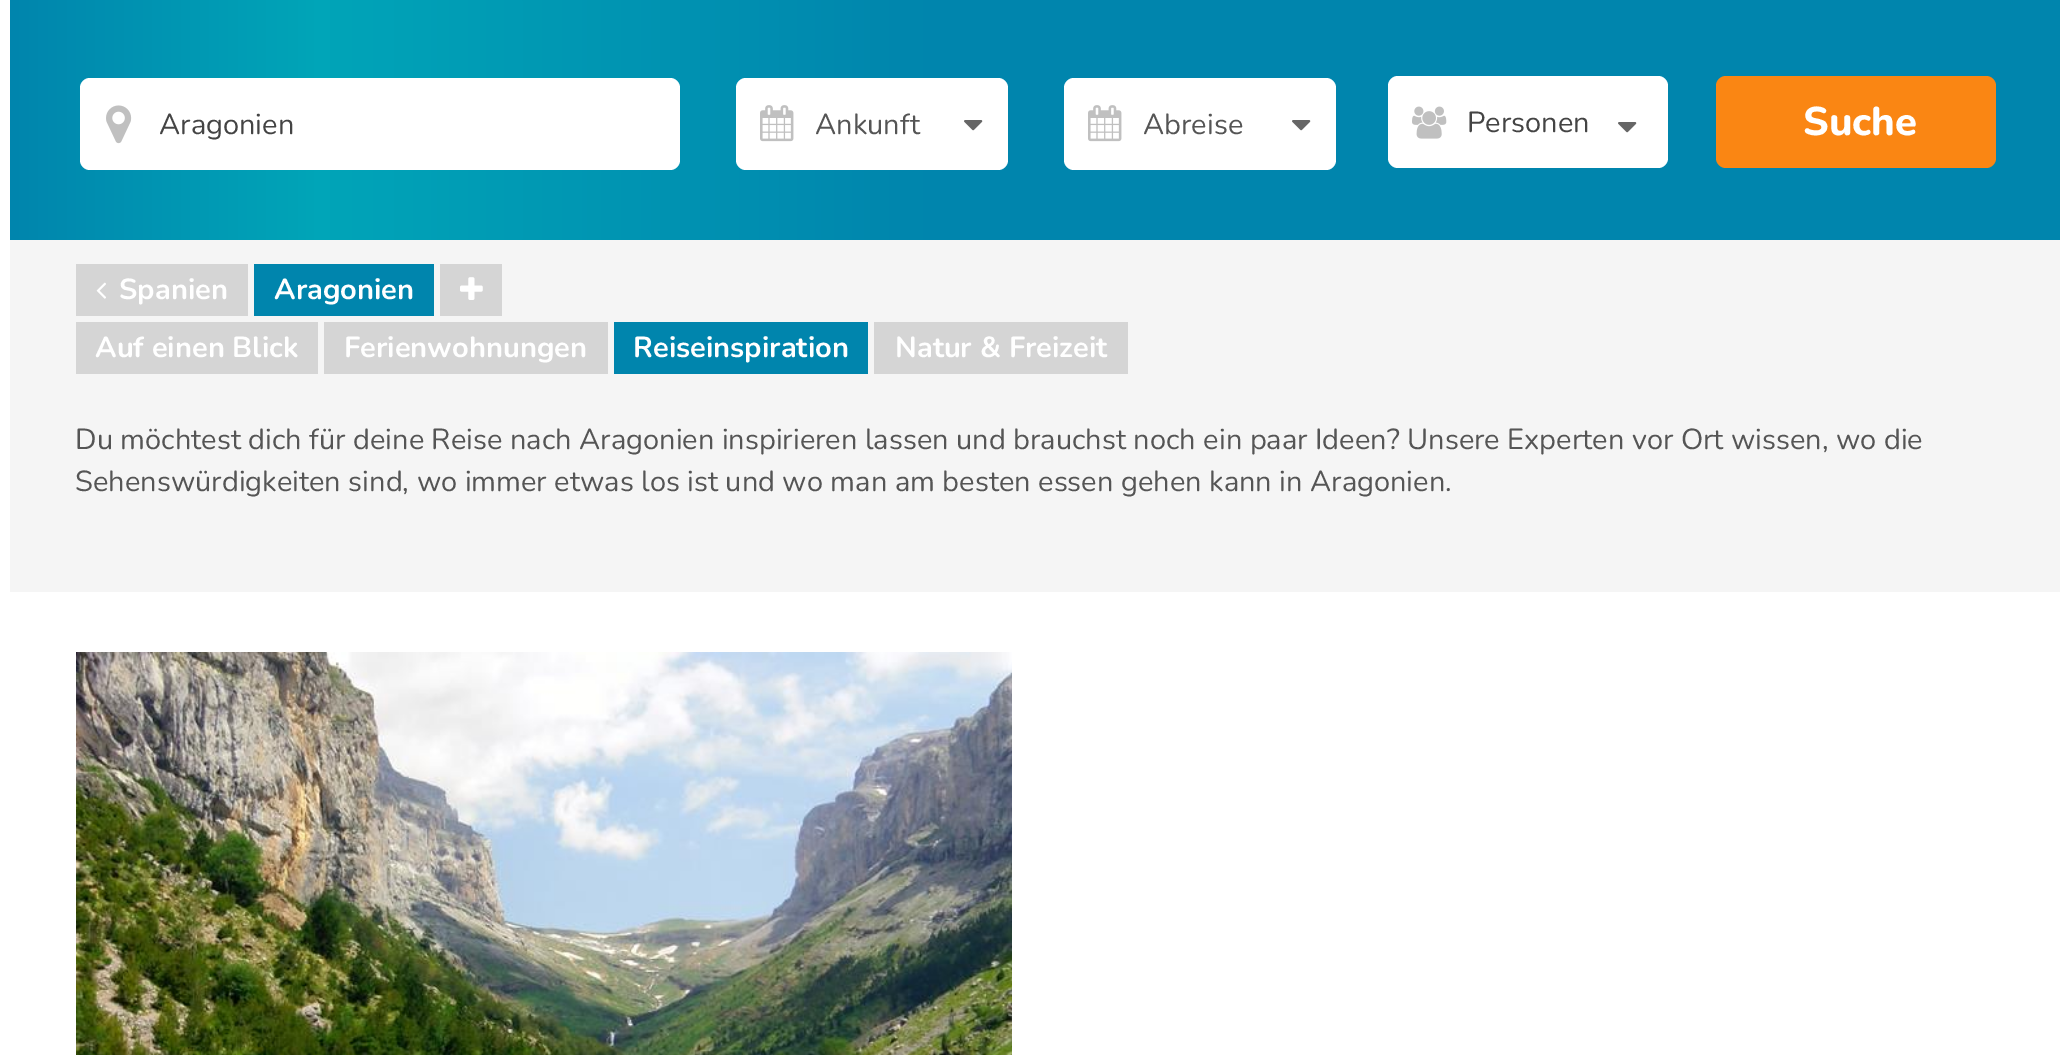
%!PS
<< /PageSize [2070 1055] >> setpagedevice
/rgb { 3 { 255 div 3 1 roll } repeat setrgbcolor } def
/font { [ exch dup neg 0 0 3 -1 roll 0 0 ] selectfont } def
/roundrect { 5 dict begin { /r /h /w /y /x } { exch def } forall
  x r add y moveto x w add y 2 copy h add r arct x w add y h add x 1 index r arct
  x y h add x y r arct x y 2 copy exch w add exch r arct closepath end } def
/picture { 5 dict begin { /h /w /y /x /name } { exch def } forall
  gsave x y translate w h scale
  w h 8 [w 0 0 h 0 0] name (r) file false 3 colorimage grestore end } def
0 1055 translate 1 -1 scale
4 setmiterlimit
255 255 255 rgb
0 0 2070 1055 rectfill
gsave 10 0 moveto 2060 0 lineto 2060 240 lineto 10 240 lineto closepath clip newpath
<< /ShadingType 2 /ColorSpace /DeviceRGB /Coords [10 120 2060 120] /Extend [true true] /Function << /FunctionType 3 /Domain [0 1] /Functions [<< /FunctionType 2 /Domain [0 1] /C0 [0 0.522 0.678] /C1 [0 0.647 0.722] /N 1 >> << /FunctionType 2 /Domain [0 1] /C0 [0 0.647 0.722] /C1 [0 0.522 0.678] /N 1 >> << /FunctionType 2 /Domain [0 1] /C0 [0 0.522 0.678] /C1 [0 0.522 0.678] /N 1 >>] /Bounds [0.15 0.45] /Encode [0 1 0 1 0 1] >> >> shfill grestore
90 78 moveto 160 78 lineto 160 170 lineto 90 170 lineto 84.5 170 80 165.5 80 160 curveto 80 88 lineto 80 82.5 84.5 78 90 78 curveto closepath fill
(img/1.rgb) 106 105 26 39 picture
160 78 moveto 670 78 lineto 675.5 78 680 82.5 680 88 curveto 680 160 lineto 680 165.5 675.5 170 670 170 curveto 160 170 lineto closepath fill
746 78 moveto 816 78 lineto 816 170 lineto 746 170 lineto 740.5 170 736 165.5 736 160 curveto 736 88 lineto 736 82.5 740.5 78 746 78 curveto closepath fill
(img/2.rgb) 760 105 34 37 picture
816 78 144 92 rectfill
960 78 moveto 998 78 lineto 1003.5 78 1008 82.5 1008 88 curveto 1008 160 lineto 1008 165.5 1003.5 170 998 170 curveto 960 170 lineto closepath fill
(img/3.rgb) 964 120 19 11 picture
1074 78 moveto 1144 78 lineto 1144 170 lineto 1074 170 lineto 1068.5 170 1064 165.5 1064 160 curveto 1064 88 lineto 1064 82.5 1068.5 78 1074 78 curveto closepath fill
(img/2.rgb) 1088 105 34 37 picture
1144 78 144 92 rectfill
1288 78 moveto 1326 78 lineto 1331.5 78 1336 82.5 1336 88 curveto 1336 160 lineto 1336 165.5 1331.5 170 1326 170 curveto 1288 170 lineto closepath fill
(img/3.rgb) 1292 120 19 11 picture
1388 76 280 92 10 roundrect fill
(img/4.rgb) 1412 106 35 33 picture
(img/3.rgb) 1618 122 19 11 picture
250 134 19 rgb
1716 76 280 92 10 roundrect fill
245 245 245 rgb
10 240 2050 352 rectfill
213 213 213 rgb
76 264 172 52 rectfill
(img/5.rgb) 96 282 10 17 picture
0 133 173 rgb
254 264 180 52 rectfill
213 213 213 rgb
440 264 62 52 rectfill
(img/6.rgb) 460 277 23 23 picture
[
  [76 322 242 52 213 213 213]
  [324 322 284 52 213 213 213]
  [614 322 254 52 0 133 173]
  [874 322 254 52 213 213 213]
] { aload pop rgb rectfill } forall
(img/7.rgb) 76 652 936 403 picture
/Nunito-Regular 29 font
68 68 68 rgb
159 134 moveto (Aragonien) show
85 85 85 rgb
815 134 moveto (Ankunft) show
1143 134 moveto (Abreise) show
68 68 68 rgb
1467 132 moveto (Personen) show
/Nunito-ExtraBold 40 font
255 255 255 rgb
1803 135 moveto (Suche) show
/Nunito-Bold 29 font
[
  [(Spanien) 119 299]
  [(Aragonien) 274 299]
  [(Auf einen Blick) 95 357]
  [(Ferienwohnungen) 344 357]
  [(Reiseinspiration) 633 357]
  [(Natur & Freizeit) 895 357]
] { aload pop moveto show } forall
/Nunito-Regular 29 font
85 85 85 rgb
75 449 moveto (Du möchtest dich für deine Reise nach Aragonien inspirieren lassen und brauchst noch ein paar Ideen? Unsere Experten vor Ort wissen, wo die) show
75 491 moveto (Sehenswürdigkeiten sind, wo immer etwas los ist und wo man am besten essen gehen kann in Aragonien.) show
showpage
